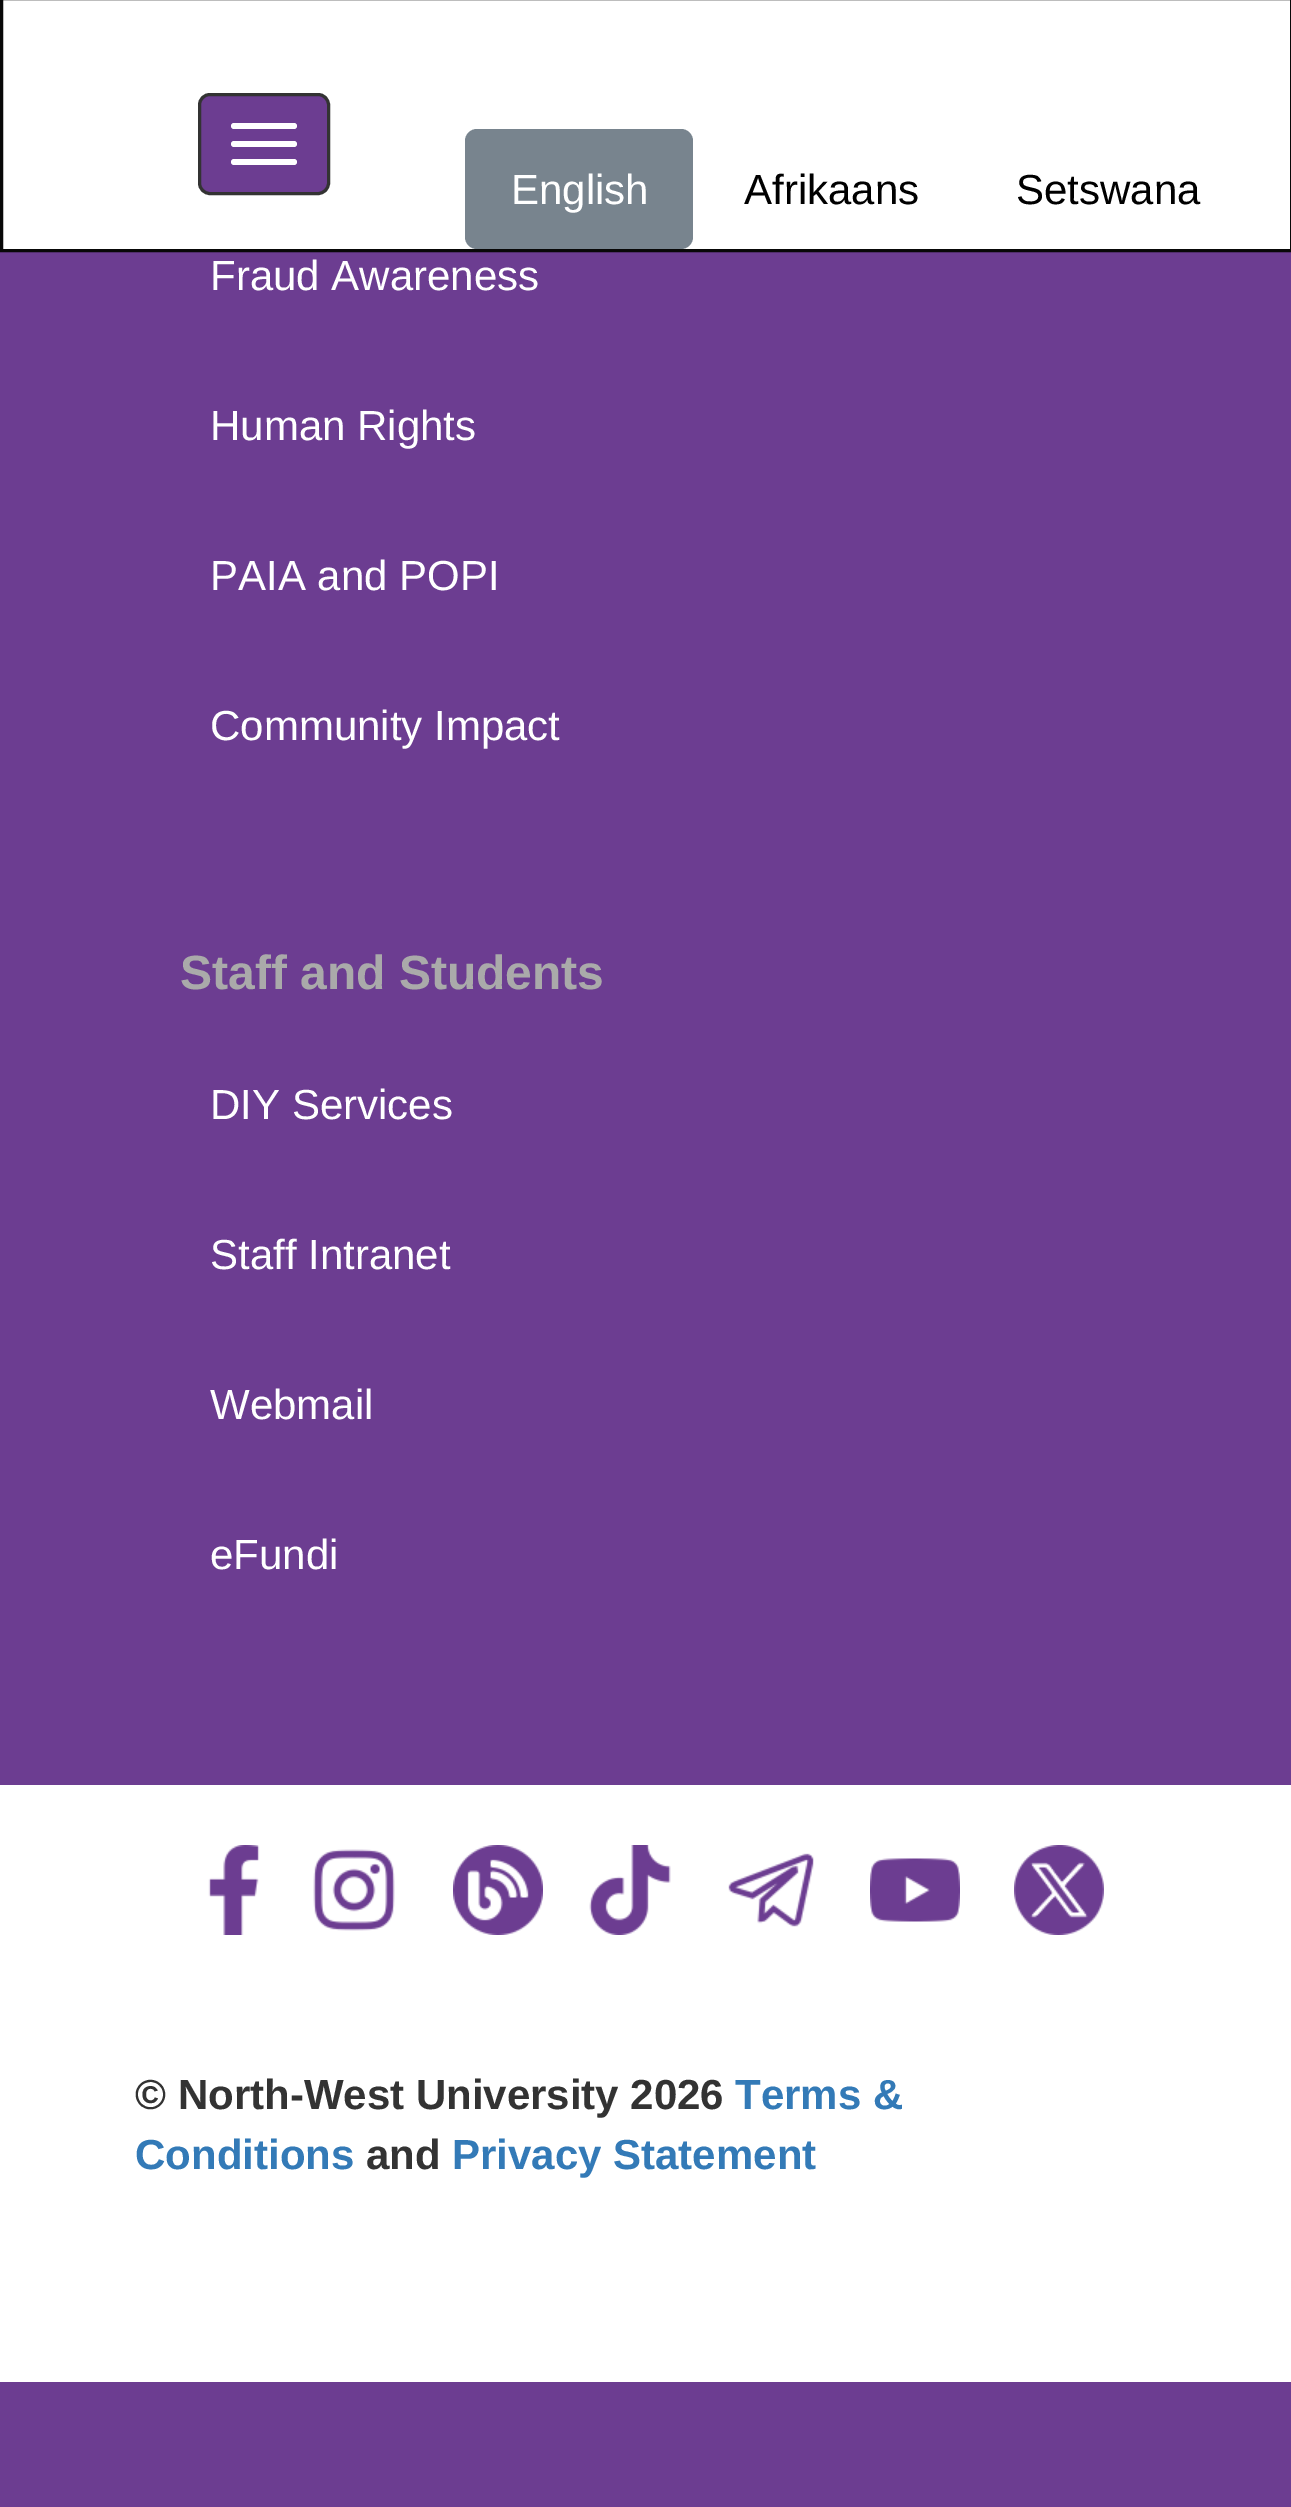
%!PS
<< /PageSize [1291 2507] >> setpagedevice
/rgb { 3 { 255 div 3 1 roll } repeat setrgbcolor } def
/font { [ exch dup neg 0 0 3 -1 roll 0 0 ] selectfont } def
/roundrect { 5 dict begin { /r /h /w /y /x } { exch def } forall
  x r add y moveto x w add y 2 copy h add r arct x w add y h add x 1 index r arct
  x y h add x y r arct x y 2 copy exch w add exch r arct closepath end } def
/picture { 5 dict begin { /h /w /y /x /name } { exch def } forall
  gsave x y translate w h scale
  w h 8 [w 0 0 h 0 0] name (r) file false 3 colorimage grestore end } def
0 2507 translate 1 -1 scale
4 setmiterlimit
108 61 145 rgb
0 0 1291 2507 rectfill
255 255 255 rgb
1.5 -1.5 moveto 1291.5 -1.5 lineto 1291.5 250.5 lineto 1.5 250.5 lineto closepath gsave fill grestore
8 8 8 rgb
3 setlinewidth
stroke
108 61 145 rgb
199.5 94.5 129 99 10.5 roundrect gsave fill grestore
51 51 51 rgb
stroke
255 255 255 rgb
231 123 66 6 3 roundrect fill
231 141 66 6 3 roundrect fill
231 159 66 6 3 roundrect fill
120 132 142 rgb
465 129 228 120 12 roundrect fill
255 255 255 rgb
0 1785 1291 597 rectfill
(img/1.rgb) 208 1845 52 90 picture
(img/2.rgb) 313 1849 82 82 picture
(img/3.rgb) 453 1845 90 90 picture
(img/4.rgb) 589 1845 82 90 picture
(img/5.rgb) 728 1853 86 74 picture
(img/6.rgb) 870 1858 90 64 picture
(img/7.rgb) 1014 1845 90 90 picture
/LiberationSans-Regular 42 font
511 204 moveto (English) show
0 0 0 rgb
744 204 moveto (Afrikaans) show
1016 204 moveto (Setswana) show
255 255 255 rgb
[
  [(Fraud Awareness) 210 290]
  [(Human Rights) 210 440]
  [(PAIA and POPI) 210 590]
  [(Community Impact) 210 740]
] { aload pop moveto show } forall
/LiberationSans-Bold 48 font
170 170 170 rgb
180 989 moveto (Staff and Students) show
/LiberationSans-Regular 42 font
255 255 255 rgb
[
  [(DIY Services) 210 1119]
  [(Staff Intranet) 210 1269]
  [(Webmail) 210 1419]
  [(eFundi) 210 1569]
] { aload pop moveto show } forall
/LiberationSans-Bold 42 font
51 51 51 rgb
135 2109 moveto (© North-West University 2026) show
51 122 183 rgb
735 2109 moveto (Terms &) show
135 2169 moveto (Conditions) show
51 51 51 rgb
366 2169 moveto (and) show
51 122 183 rgb
452 2169 moveto (Privacy Statement) show
showpage
